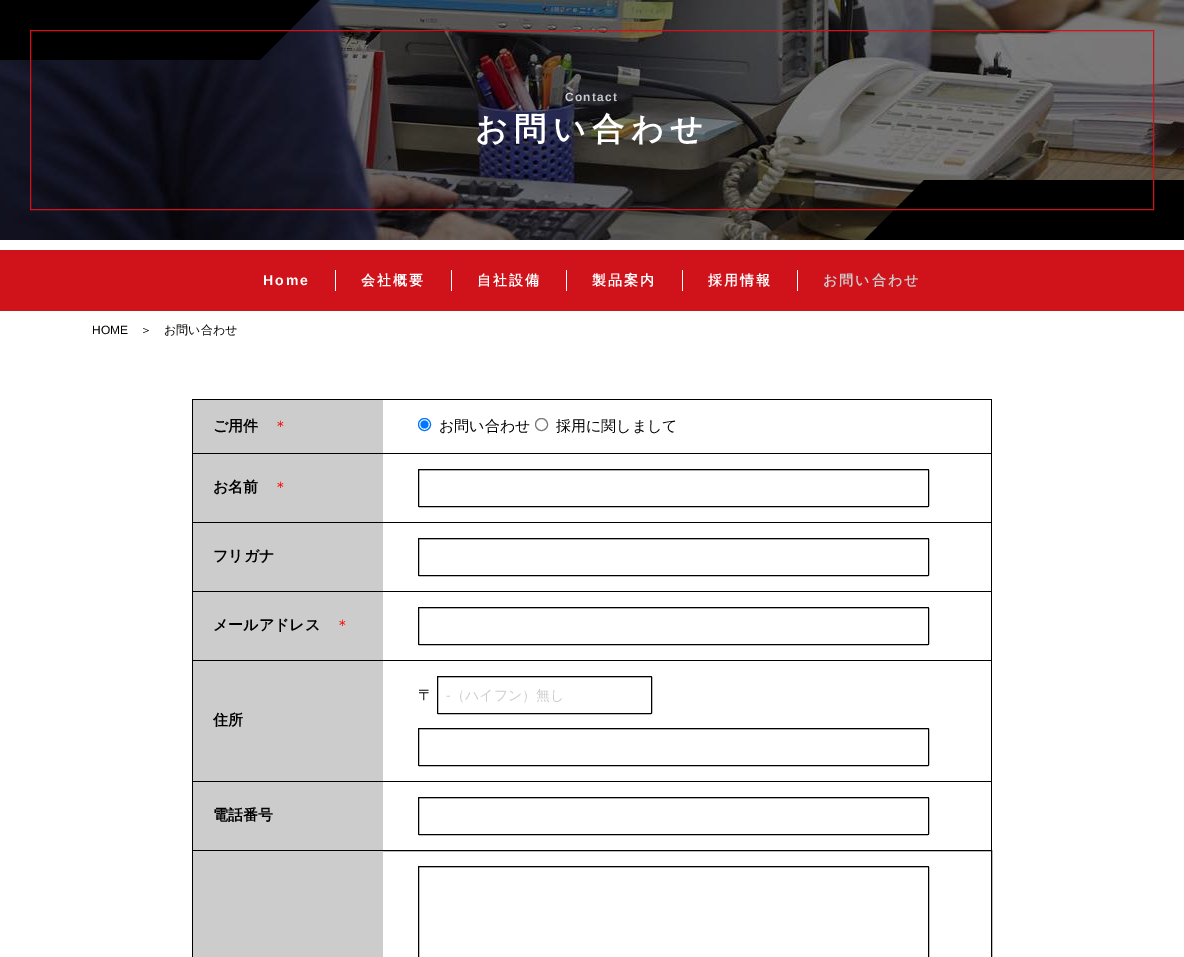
%!PS
<< /PageSize [1184 957] >> setpagedevice
/rgb { 3 { 255 div 3 1 roll } repeat setrgbcolor } def
/font { [ exch dup neg 0 0 3 -1 roll 0 0 ] selectfont } def
/circle { newpath 0 360 arc closepath } def
/roundrect { 5 dict begin { /r /h /w /y /x } { exch def } forall
  x r add y moveto x w add y 2 copy h add r arct x w add y h add x 1 index r arct
  x y h add x y r arct x y 2 copy exch w add exch r arct closepath end } def
/picture { 5 dict begin { /h /w /y /x /name } { exch def } forall
  gsave x y translate w h scale
  w h 8 [w 0 0 h 0 0] name (r) file false 3 colorimage grestore end } def
0 957 translate 1 -1 scale
4 setmiterlimit
255 255 255 rgb
0 0 1184 957 rectfill
(img/1.rgb) 0 0 1184 240 picture
(img/2.rgb) 0 0 320 60 picture
(img/3.rgb) 864 180 320 60 picture
208 18 27 rgb
30.5 30.5 1123 179 rectstroke
[
  [0 250 1184 61 208 18 27]
  [335 270 1 21 255 255 255]
  [451 270 1 21 255 255 255]
  [566 270 1 21 255 255 255]
  [682 270 1 21 255 255 255]
  [797 270 1 21 255 255 255]
  [192 399 800 1 0 0 0]
  [991 399 1 54 0 0 0]
  [192 399 1 54 0 0 0]
  [193 400 190 53 204 204 204]
] { aload pop rgb rectfill } forall
0 117 255 rgb
424.5 424.5 6 circle stroke
424.5 424.5 4 circle fill
118 118 118 rgb
541.5 424.5 6 circle stroke
[
  [192 453 800 1 0 0 0]
  [991 453 1 69 0 0 0]
  [192 453 1 69 0 0 0]
  [193 454 190 68 204 204 204]
  [419 470 509 1 236 236 236]
] { aload pop rgb rectfill } forall
0 0 0 rgb
418.5 469.5 510 37 0.5 roundrect stroke
[
  [192 522 800 1 0 0 0]
  [991 522 1 69 0 0 0]
  [192 522 1 69 0 0 0]
  [193 523 190 68 204 204 204]
  [419 539 509 1 236 236 236]
] { aload pop rgb rectfill } forall
0 0 0 rgb
418.5 538.5 510 37 0.5 roundrect stroke
[
  [192 591 800 1 0 0 0]
  [991 591 1 69 0 0 0]
  [192 591 1 69 0 0 0]
  [193 592 190 68 204 204 204]
  [419 608 509 1 236 236 236]
] { aload pop rgb rectfill } forall
0 0 0 rgb
418.5 607.5 510 37 0.5 roundrect stroke
[
  [192 660 800 1 0 0 0]
  [991 660 1 121 0 0 0]
  [192 660 1 121 0 0 0]
  [438 677 213 1 236 236 236]
] { aload pop rgb rectfill } forall
0 0 0 rgb
437.5 676.5 214 37 0.5 roundrect stroke
236 236 236 rgb
419 729 509 1 rectfill
0 0 0 rgb
418.5 728.5 510 37 0.5 roundrect stroke
[
  [193 661 190 120 204 204 204]
  [192 781 800 1 0 0 0]
  [991 781 1 69 0 0 0]
  [192 781 1 69 0 0 0]
  [193 782 190 68 204 204 204]
  [419 798 509 1 236 236 236]
] { aload pop rgb rectfill } forall
0 0 0 rgb
418.5 797.5 510 37 0.5 roundrect stroke
192.5 850.5 799 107 rectstroke
204 204 204 rgb
193 851 190 106 rectfill
236 236 236 rgb
419 867 509 1 rectfill
0 0 0 rgb
418.5 866.5 510 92 0.5 roundrect stroke
/LiberationSans-Bold 12 font
204 204 204 rgb
565 101 moveto 1.25 0 (Contact) ashow
/WenQuanYiZenHei-Bold 32 font
255 255 255 rgb
475 140 moveto 6.5 0 (お問い合わせ) ashow
/LiberationSans-Bold 14 font
263 285 moveto 2 0 (Home) ashow
/WenQuanYiZenHei-Bold 14 font
361 285 moveto 2 0 (会社概要) ashow
477 285 moveto 2 0 (自社設備) ashow
592 285 moveto 2 0 (製品案内) ashow
708 285 moveto 2 0 (採用情報) ashow
204 204 204 rgb
823 285 moveto 2 0 (お問い合わせ) ashow
/LiberationSans-Regular 12 font
0 0 0 rgb
92 334 moveto (HOME) show
/WenQuanYiZenHei-Medium 12 font
140 334 moveto (＞　お問い合わせ) show
/WenQuanYiZenHei-Bold 15 font
213 431 moveto (ご用件) show
/WenQuanYiZenHei-Medium 15 font
255 0 0 rgb
273 431 moveto (＊) show
0 0 0 rgb
439 431 moveto (お問い合わせ) show
556 431 moveto (採用に関しまして) show
/WenQuanYiZenHei-Bold 15 font
213 492 moveto (お名前) show
/WenQuanYiZenHei-Medium 15 font
255 0 0 rgb
273 492 moveto (＊) show
/WenQuanYiZenHei-Bold 15 font
0 0 0 rgb
213 561 moveto (フリガナ) show
213 630 moveto (メールアドレス) show
/WenQuanYiZenHei-Medium 15 font
255 0 0 rgb
335 630 moveto (＊) show
0 0 0 rgb
418 700 moveto (〒) show
/LiberationSans-Regular 14 font
204 204 204 rgb
446 700 moveto (-) show
/WenQuanYiZenHei-Medium 14 font
451 700 moveto (（ハイフン）無し) show
/WenQuanYiZenHei-Bold 15 font
0 0 0 rgb
213 725 moveto (住所) show
213 820 moveto (電話番号) show
showpage
